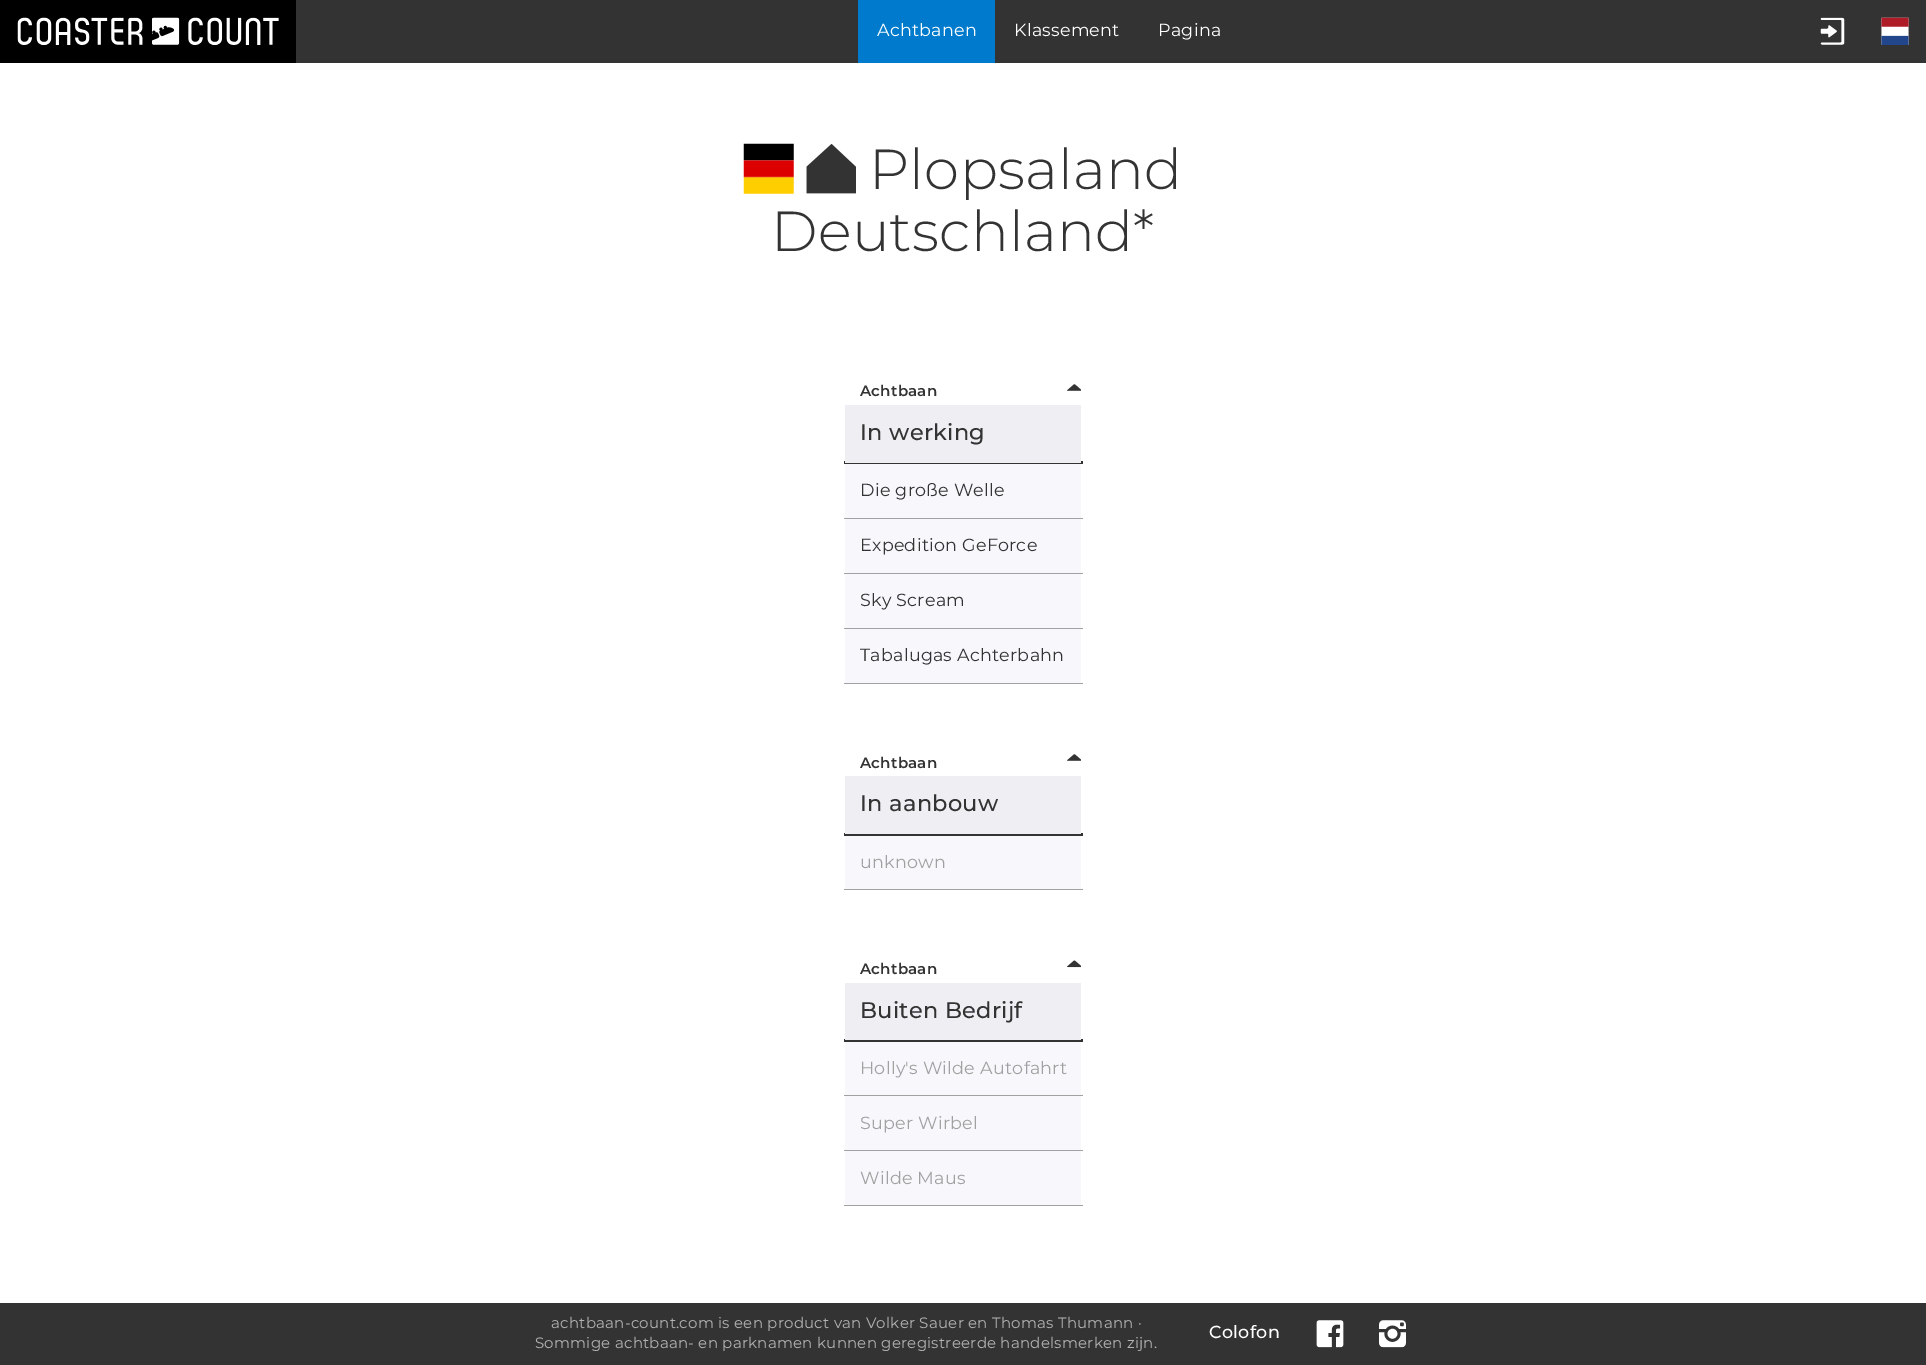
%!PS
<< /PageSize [1926 1365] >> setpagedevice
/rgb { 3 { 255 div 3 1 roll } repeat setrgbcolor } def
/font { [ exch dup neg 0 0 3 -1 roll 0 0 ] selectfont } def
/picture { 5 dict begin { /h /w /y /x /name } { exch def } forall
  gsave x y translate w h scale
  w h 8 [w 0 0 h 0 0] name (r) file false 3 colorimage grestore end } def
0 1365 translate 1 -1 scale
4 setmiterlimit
255 255 255 rgb
0 0 1926 1365 rectfill
51 51 51 rgb
296 0 1630 63 rectfill
0 0 0 rgb
0 0 296 63 rectfill
(img/1.rgb) 17 17 262 28 picture
0 122 204 rgb
858 0 137 63 rectfill
(img/2.rgb) 1820 17 25 28 picture
(img/3.rgb) 1881 17 28 28 picture
(img/4.rgb) 743 143 51 51 picture
(img/5.rgb) 806 144 50 50 picture
(img/6.rgb) 1067 384 14 7 picture
[
  [844 461 239 3 51 51 51]
  [845 405 236 58 239 239 243]
  [845 464 236 54 248 248 252]
  [844 518 239 1 161 161 161]
  [845 519 236 54 248 248 252]
  [844 573 239 1 161 161 161]
  [845 574 236 54 248 248 252]
  [844 628 239 1 161 161 161]
  [845 629 236 54 248 248 252]
  [844 683 239 1 161 161 161]
] { aload pop rgb rectfill } forall
(img/6.rgb) 1067 754 14 7 picture
[
  [844 833 239 3 51 51 51]
  [845 776 236 58 239 239 243]
  [845 836 236 53 248 248 252]
  [844 889 239 1 161 161 161]
] { aload pop rgb rectfill } forall
(img/7.rgb) 1067 960 14 8 picture
[
  [844 1039 239 3 51 51 51]
  [845 983 236 57 239 239 243]
  [845 1042 236 53 248 248 252]
  [844 1095 239 1 161 161 161]
  [845 1096 236 54 248 248 252]
  [844 1150 239 1 161 161 161]
  [845 1151 236 54 248 248 252]
  [844 1205 239 1 161 161 161]
  [0 1303 1926 62 51 51 51]
] { aload pop rgb rectfill } forall
(img/8.rgb) 1316 1320 28 28 picture
(img/9.rgb) 1379 1320 27 28 picture
/Montserrat-Regular 17.5 font
255 255 255 rgb
877 36 moveto 0.25 0 (Achtbanen) ashow
1014 36 moveto 0.25 0 (Klassement) ashow
1158 36 moveto 0.25 0 (Pagina) ashow
/Montserrat-Light 56.25 font
51 51 51 rgb
869 189 moveto 0.25 0 (Plopsaland) ashow
771 251 moveto 0.25 0 (Deutschland*) ashow
/Montserrat-SemiBold 15 font
860 396 moveto 0.25 0 (Achtbaan) ashow
/Montserrat-Medium 22.5 font
860 440 moveto 0.25 0 (In werking) ashow
/Montserrat-Regular 17.5 font
860 496 moveto 0.25 0 (Die große Welle) ashow
860 551 moveto 0.25 0 (Expedition GeForce) ashow
860 606 moveto 0.25 0 (Sky Scream) ashow
860 661 moveto 0.25 0 (Tabalugas Achterbahn) ashow
/Montserrat-SemiBold 15 font
860 768 moveto 0.25 0 (Achtbaan) ashow
/Montserrat-Medium 22.5 font
860 811 moveto 0.25 0 (In aanbouw) ashow
/Montserrat-Regular 17.5 font
161 161 161 rgb
860 868 moveto 0.25 0 (unknown) ashow
/Montserrat-SemiBold 15 font
51 51 51 rgb
860 974 moveto 0.25 0 (Achtbaan) ashow
/Montserrat-Medium 22.5 font
860 1018 moveto 0.25 0 (Buiten Bedrijf) ashow
/Montserrat-Regular 17.5 font
161 161 161 rgb
860 1074 moveto 0.25 0 (Holly's Wilde Autofahrt) ashow
860 1129 moveto 0.25 0 (Super Wirbel) ashow
860 1184 moveto 0.25 0 (Wilde Maus) ashow
/Montserrat-Regular 15 font
179 179 179 rgb
551 1328 moveto 0.25 0 (achtbaan-count.com is een product van Volker Sauer en Thomas Thumann ·) ashow
535 1348 moveto 0.25 0 (Sommige achtbaan- en parknamen kunnen geregistreerde handelsmerken zijn.) ashow
/Montserrat-Medium 17.5 font
255 255 255 rgb
1209 1338 moveto 0.25 0 (Colofon) ashow
showpage
